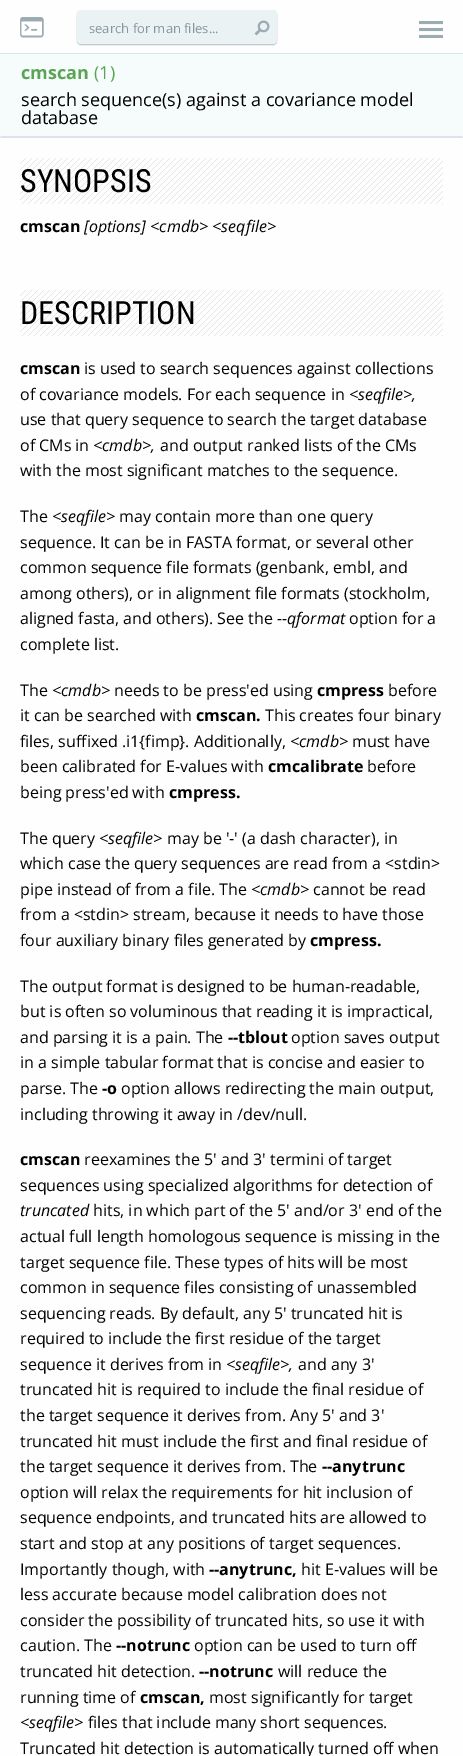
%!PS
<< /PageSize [463 1756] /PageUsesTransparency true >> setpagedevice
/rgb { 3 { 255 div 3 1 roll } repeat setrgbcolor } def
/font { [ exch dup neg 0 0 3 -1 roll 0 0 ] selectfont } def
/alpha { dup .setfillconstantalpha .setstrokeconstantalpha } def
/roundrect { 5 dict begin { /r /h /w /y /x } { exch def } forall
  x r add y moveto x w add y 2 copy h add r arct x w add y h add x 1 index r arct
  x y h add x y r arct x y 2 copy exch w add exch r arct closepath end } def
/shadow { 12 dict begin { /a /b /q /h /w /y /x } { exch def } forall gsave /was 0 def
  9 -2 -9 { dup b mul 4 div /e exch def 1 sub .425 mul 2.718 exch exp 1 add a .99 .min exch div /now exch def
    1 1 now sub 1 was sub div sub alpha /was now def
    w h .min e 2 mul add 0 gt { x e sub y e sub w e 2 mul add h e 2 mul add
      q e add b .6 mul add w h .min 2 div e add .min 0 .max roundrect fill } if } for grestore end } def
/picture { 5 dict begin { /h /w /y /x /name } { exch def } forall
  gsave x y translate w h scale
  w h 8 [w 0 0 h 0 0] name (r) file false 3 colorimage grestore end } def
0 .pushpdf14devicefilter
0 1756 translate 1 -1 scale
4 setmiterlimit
254 254 254 rgb
0 0 463 1756 rectfill
220 229 231 rgb
0 53 463 1 rectfill
(img/1.rgb) 20 17 24 21 picture
6 47 55 rgb
77 11 200 34 4 0.5 0.3 shadow
234 242 244 rgb
77 10 200 34 4 roundrect fill
(img/2.rgb) 254 20 16 16 picture
(img/3.rgb) 419 21 24 17 picture
246 251 252 rgb
0 54 463 84 rectfill
223 227 233 rgb
463 138 moveto 0 138 lineto 1 136 lineto 462 136 lineto closepath fill
(img/4.rgb) 20 158 423 46 picture
(img/4.rgb) 20 290 423 46 picture
/OpenSans-Regular 13 font
134 150 157 rgb
89 33 moveto (search for man files...) show
/OpenSans-Bold 18 font
89 165 82 rgb
21 79 moveto (cmscan) show
/OpenSans-Regular 18 font
94 79 moveto (\(1\)) show
0 0 0 rgb
21 106 moveto (search sequence\(s\) against a covariance model) show
21 124 moveto (database) show
/RobotoCondensed-Regular 32 font
20 192 moveto (SYNOPSIS) show
/OpenSans-Bold 16 font
20 232 moveto (cmscan) show
/OpenSans-Italic 16 font
84 232 moveto ([options] <cmdb> <seqfile>) show
/RobotoCondensed-Regular 32 font
20 324 moveto (DESCRIPTION) show
/OpenSans-Bold 16 font
20 374 moveto (cmscan) show
/OpenSans-Regular 16 font
84 374 moveto (is used to search sequences against collections) show
20 400 moveto (of covariance models. For each sequence in) show
/OpenSans-Italic 16 font
349 400 moveto (<seqfile>,) show
/OpenSans-Regular 16 font
20 425 moveto (use that query sequence to search the target database) show
20 451 moveto (of CMs in) show
/OpenSans-Italic 16 font
93 451 moveto (<cmdb>,) show
/OpenSans-Regular 16 font
[
  [(and output ranked lists of the CMs) 160 451]
  [(with the most significant matches to the sequence.) 20 476]
  [(The) 20 522]
] { aload pop moveto show } forall
/OpenSans-Italic 16 font
52 522 moveto (<seqfile>) show
/OpenSans-Regular 16 font
[
  [(may contain more than one query) 119 522]
  [(sequence. It can be in FASTA format, or several other) 20 548]
  [(common sequence file formats \(genbank, embl, and) 20 573]
  [(among others\), or in alignment file formats \(stockholm,) 20 599]
  [(aligned fasta, and others\). See the) 20 624]
] { aload pop moveto show } forall
/OpenSans-Italic 16 font
277 624 moveto (--qformat) show
/OpenSans-Regular 16 font
[
  [(option for a) 349 624]
  [(complete list.) 20 650]
  [(The) 20 696]
] { aload pop moveto show } forall
/OpenSans-Italic 16 font
52 696 moveto (<cmdb>) show
/OpenSans-Regular 16 font
114 696 moveto (needs to be press'ed using) show
/OpenSans-Bold 16 font
317 696 moveto (cmpress) show
/OpenSans-Regular 16 font
388 696 moveto (before) show
20 721 moveto (it can be searched with) show
/OpenSans-Bold 16 font
196 721 moveto (cmscan.) show
/OpenSans-Regular 16 font
265 721 moveto (This creates four binary) show
20 747 moveto (files, suffixed .i1{fimp}. Additionally,) show
/OpenSans-Italic 16 font
290 747 moveto (<cmdb>) show
/OpenSans-Regular 16 font
352 747 moveto (must have) show
20 772 moveto (been calibrated for E-values with) show
/OpenSans-Bold 16 font
268 772 moveto (cmcalibrate) show
/OpenSans-Regular 16 font
367 772 moveto (before) show
20 798 moveto (being press'ed with) show
/OpenSans-Bold 16 font
169 798 moveto (cmpress.) show
/OpenSans-Regular 16 font
20 844 moveto (The query) show
/OpenSans-Italic 16 font
99 844 moveto (<seqfile>) show
/OpenSans-Regular 16 font
[
  [(may be '-' \(a dash character\), in) 167 844]
  [(which case the query sequences are read from a <stdin>) 20 869]
  [(pipe instead of from a file. The) 20 895]
] { aload pop moveto show } forall
/OpenSans-Italic 16 font
251 895 moveto (<cmdb>) show
/OpenSans-Regular 16 font
[
  [(cannot be read) 313 895]
  [(from a <stdin> stream, because it needs to have those) 20 920]
  [(four auxiliary binary files generated by) 20 946]
] { aload pop moveto show } forall
/OpenSans-Bold 16 font
310 946 moveto (cmpress.) show
/OpenSans-Regular 16 font
[
  [(The output format is designed to be human-readable,) 20 992]
  [(but is often so voluminous that reading it is impractical,) 20 1017]
  [(and parsing it is a pain. The) 20 1043]
] { aload pop moveto show } forall
/OpenSans-Bold 16 font
228 1043 moveto (--tblout) show
/OpenSans-Regular 16 font
[
  [(option saves output) 291 1043]
  [(in a simple tabular format that is concise and easier to) 20 1068]
  [(parse. The) 20 1094]
] { aload pop moveto show } forall
/OpenSans-Bold 16 font
102 1094 moveto (-o) show
/OpenSans-Regular 16 font
121 1094 moveto (option allows redirecting the main output,) show
20 1120 moveto (including throwing it away in /dev/null.) show
/OpenSans-Bold 16 font
20 1165 moveto (cmscan) show
/OpenSans-Regular 16 font
84 1165 moveto (reexamines the 5' and 3' termini of target) show
20 1191 moveto (sequences using specialized algorithms for detection of) show
/OpenSans-Italic 16 font
20 1216 moveto (truncated) show
/OpenSans-Regular 16 font
[
  [(hits, in which part of the 5' and/or 3' end of the) 93 1216]
  [(actual full length homologous sequence is missing in the) 20 1242]
  [(target sequence file. These types of hits will be most) 20 1268]
  [(common in sequence files consisting of unassembled) 20 1293]
  [(sequencing reads. By default, any 5' truncated hit is) 20 1319]
  [(required to include the first residue of the target) 20 1344]
  [(sequence it derives from in) 20 1370]
] { aload pop moveto show } forall
/OpenSans-Italic 16 font
226 1370 moveto (<seqfile>,) show
/OpenSans-Regular 16 font
[
  [(and any 3') 298 1370]
  [(truncated hit is required to include the final residue of) 20 1395]
  [(the target sequence it derives from. Any 5' and 3') 20 1421]
  [(truncated hit must include the first and final residue of) 20 1447]
  [(the target sequence it derives from. The) 20 1472]
] { aload pop moveto show } forall
/OpenSans-Bold 16 font
322 1472 moveto (--anytrunc) show
/OpenSans-Regular 16 font
[
  [(option will relax the requirements for hit inclusion of) 20 1498]
  [(sequence endpoints, and truncated hits are allowed to) 20 1523]
  [(start and stop at any positions of target sequences.) 20 1549]
  [(Importantly though, with) 20 1575]
] { aload pop moveto show } forall
/OpenSans-Bold 16 font
209 1575 moveto (--anytrunc,) show
/OpenSans-Regular 16 font
[
  [(hit E-values will be) 301 1575]
  [(less accurate because model calibration does not) 20 1600]
  [(consider the possibility of truncated hits, so use it with) 20 1626]
  [(caution. The) 20 1651]
] { aload pop moveto show } forall
/OpenSans-Bold 16 font
116 1651 moveto (--notrunc) show
/OpenSans-Regular 16 font
194 1651 moveto (option can be used to turn off) show
20 1677 moveto (truncated hit detection.) show
/OpenSans-Bold 16 font
199 1677 moveto (--notrunc) show
/OpenSans-Regular 16 font
278 1677 moveto (will reduce the) show
20 1703 moveto (running time of) show
/OpenSans-Bold 16 font
140 1703 moveto (cmscan,) show
/OpenSans-Regular 16 font
209 1703 moveto (most significantly for target) show
/OpenSans-Italic 16 font
20 1728 moveto (<seqfile>) show
/OpenSans-Regular 16 font
88 1728 moveto (files that include many short sequences.) show
20 1754 moveto (Truncated hit detection is automatically turned off when) show
.poppdf14devicefilter showpage
